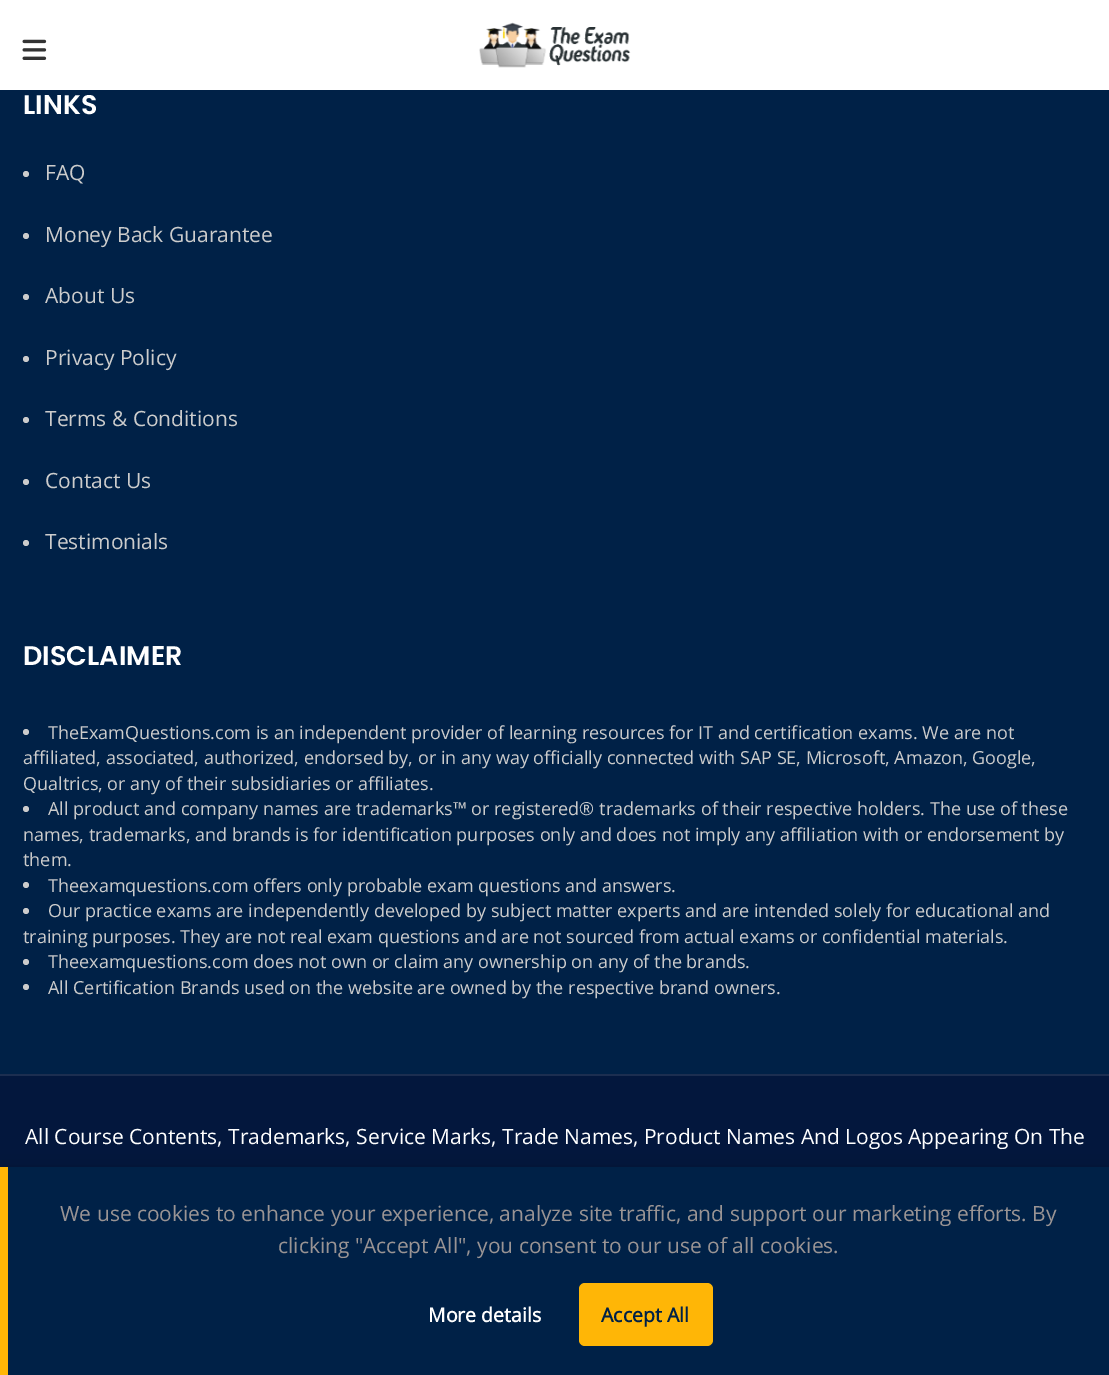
%!PS
<< /PageSize [1109 1375] /PageUsesTransparency true >> setpagedevice
/rgb { 3 { 255 div 3 1 roll } repeat setrgbcolor } def
/font { [ exch dup neg 0 0 3 -1 roll 0 0 ] selectfont } def
/alpha { dup .setfillconstantalpha .setstrokeconstantalpha } def
/circle { newpath 0 360 arc closepath } def
/roundrect { 5 dict begin { /r /h /w /y /x } { exch def } forall
  x r add y moveto x w add y 2 copy h add r arct x w add y h add x 1 index r arct
  x y h add x y r arct x y 2 copy exch w add exch r arct closepath end } def
/shadow { 12 dict begin { /a /b /q /h /w /y /x } { exch def } forall gsave /was 0 def
  9 -2 -9 { dup b mul 4 div /e exch def 1 sub .425 mul 2.718 exch exp 1 add a .99 .min exch div /now exch def
    1 1 now sub 1 was sub div sub alpha /was now def
    w h .min e 2 mul add 0 gt { x e sub y e sub w e 2 mul add h e 2 mul add
      q e add b .6 mul add w h .min 2 div e add .min 0 .max roundrect fill } if } for grestore end } def
/picture { 5 dict begin { /h /w /y /x /name } { exch def } forall
  gsave x y translate w h scale
  w h 8 [w 0 0 h 0 0] name (r) file false 3 colorimage grestore end } def
0 .pushpdf14devicefilter
0 1375 translate 1 -1 scale
4 setmiterlimit
0 33 71 rgb
0 0 1109 1375 rectfill
255 255 255 rgb
0 0 1109 90 rectfill
(img/1.rgb) 22 39 25 21 picture
(img/2.rgb) 479 22 152 46 picture
204 204 204 rgb
26 174 3 circle fill
26 236 3 circle fill
26 297 3 circle fill
26 359 3 circle fill
26 420 3 circle fill
26 482 3 circle fill
26 543 3 circle fill
26 732 3 circle fill
26 809 3 circle fill
26 885 3 circle fill
26 911 3 circle fill
26 962 3 circle fill
26 987 3 circle fill
3 23 61 rgb
0 1076 1109 91 rectfill
28 46 80 rgb
0 1074 1109 2 rectfill
0 0 0 rgb
0 1173 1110 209 0 11 0.3 shadow
0 33 71 rgb
8 1167 1101 208 rectfill
255 182 6 rgb
0 1167 8 208 rectfill
579 1283 134 63 6 roundrect fill
/Poppins-SemiBold 27 font
255 255 255 rgb
23 114 moveto (LINKS) show
/OpenSans-Regular 21 font
204 204 204 rgb
[
  [(FAQ) 45 180]
  [(Money Back Guarantee) 45 242]
  [(About Us) 45 303]
  [(Privacy Policy) 45 365]
  [(Terms & Conditions) 45 426]
  [(Contact Us) 45 488]
  [(Testimonials) 45 549]
] { aload pop moveto show } forall
/Poppins-SemiBold 27 font
255 255 255 rgb
23 665 moveto (DISCLAIMER) show
/OpenSans-Regular 18 font
204 204 204 rgb
[
  [(TheExamQuestions.com is an independent provider of learning resources for IT and certification exams. We are not) 48 739]
  [(affiliated, associated, authorized, endorsed by, or in any way officially connected with SAP SE, Microsoft, Amazon, Google,) 23 764]
  [(Qualtrics, or any of their subsidiaries or affiliates.) 23 790]
  [(All product and company names are trademarks™ or registered® trademarks of their respective holders. The use of these) 48 815]
  [(names, trademarks, and brands is for identification purposes only and does not imply any affiliation with or endorsement by) 23 841]
  [(them.) 23 866]
  [(Theexamquestions.com offers only probable exam questions and answers.) 48 892]
  [(Our practice exams are independently developed by subject matter experts and are intended solely for educational and) 48 917]
  [(training purposes. They are not real exam questions and are not sourced from actual exams or confidential materials.) 23 943]
  [(Theexamquestions.com does not own or claim any ownership on any of the brands.) 48 968]
  [(All Certification Brands used on the website are owned by the respective brand owners.) 48 994]
] { aload pop moveto show } forall
/OpenSans-Regular 21 font
255 255 255 rgb
25 1144 moveto (All Course Contents, Trademarks, Service Marks, Trade Names, Product Names And Logos Appearing On The) show
154 148 148 rgb
60 1221 moveto (We use cookies to enhance your experience, analyze site traffic, and support our marketing efforts. By) show
278 1253 moveto (clicking "Accept All", you consent to our use of all cookies.) show
/OpenSans-Bold 19.5 font
255 255 255 rgb
428 1322 moveto (More details) show
0 33 71 rgb
601 1322 moveto (Accept All) show
.poppdf14devicefilter showpage
